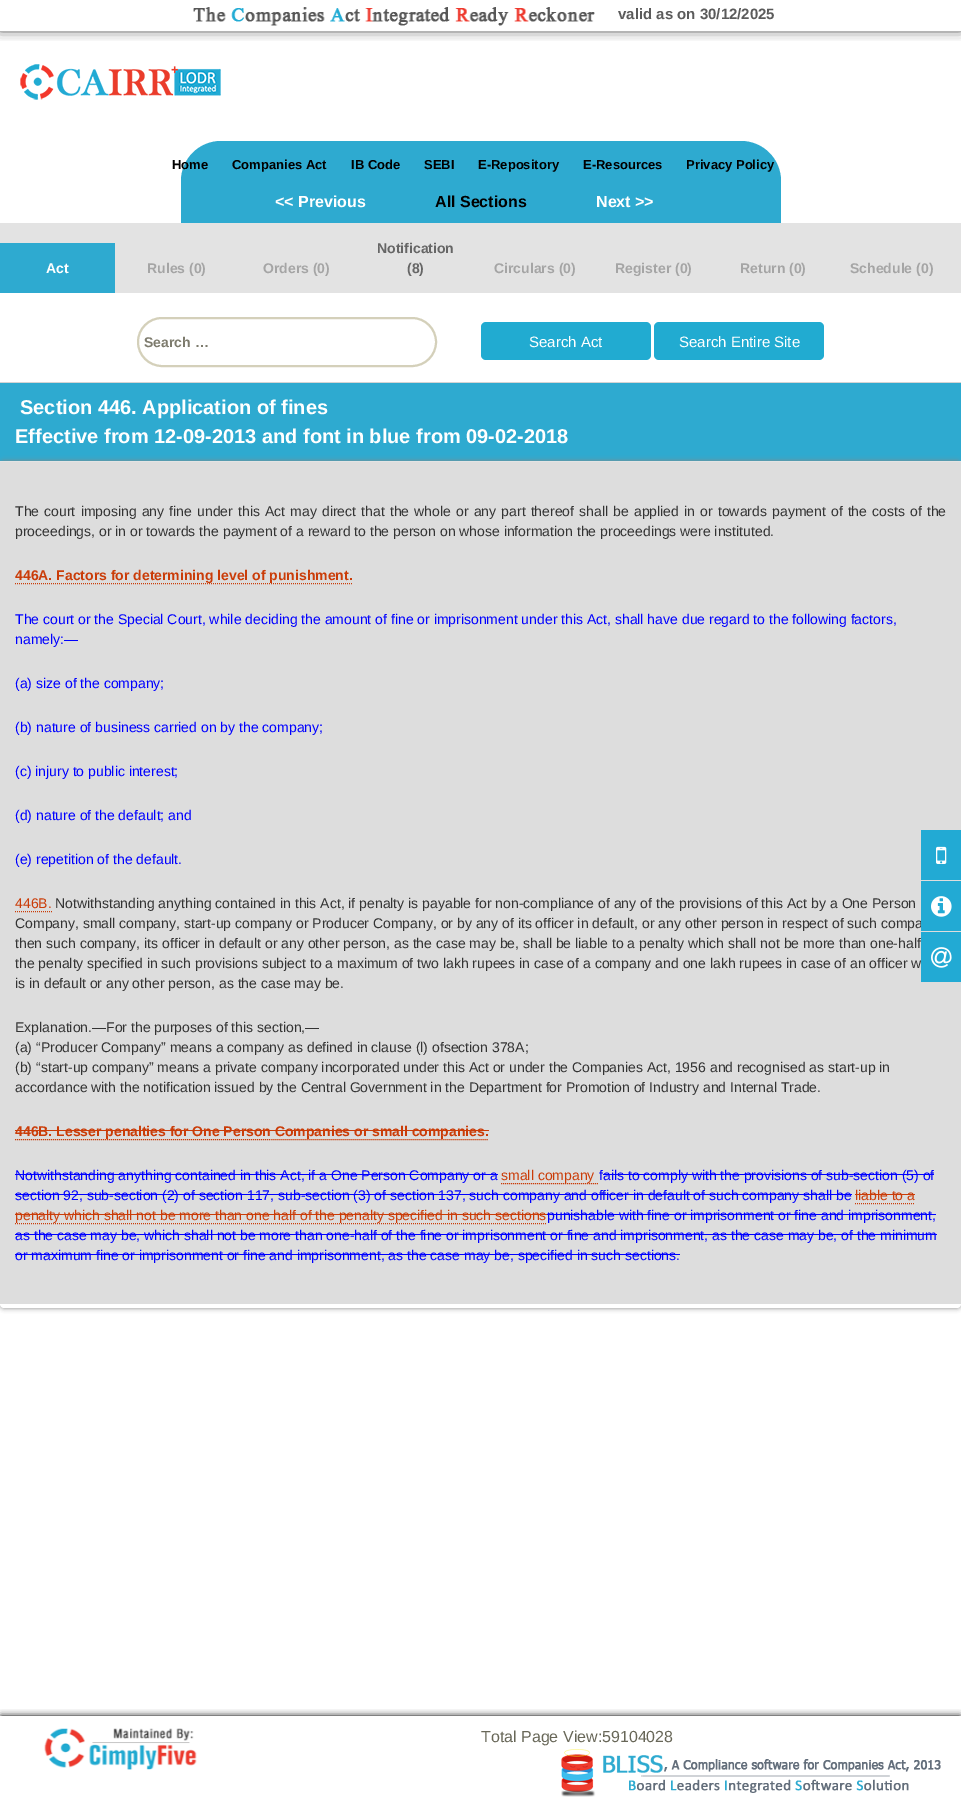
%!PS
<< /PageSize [961 1808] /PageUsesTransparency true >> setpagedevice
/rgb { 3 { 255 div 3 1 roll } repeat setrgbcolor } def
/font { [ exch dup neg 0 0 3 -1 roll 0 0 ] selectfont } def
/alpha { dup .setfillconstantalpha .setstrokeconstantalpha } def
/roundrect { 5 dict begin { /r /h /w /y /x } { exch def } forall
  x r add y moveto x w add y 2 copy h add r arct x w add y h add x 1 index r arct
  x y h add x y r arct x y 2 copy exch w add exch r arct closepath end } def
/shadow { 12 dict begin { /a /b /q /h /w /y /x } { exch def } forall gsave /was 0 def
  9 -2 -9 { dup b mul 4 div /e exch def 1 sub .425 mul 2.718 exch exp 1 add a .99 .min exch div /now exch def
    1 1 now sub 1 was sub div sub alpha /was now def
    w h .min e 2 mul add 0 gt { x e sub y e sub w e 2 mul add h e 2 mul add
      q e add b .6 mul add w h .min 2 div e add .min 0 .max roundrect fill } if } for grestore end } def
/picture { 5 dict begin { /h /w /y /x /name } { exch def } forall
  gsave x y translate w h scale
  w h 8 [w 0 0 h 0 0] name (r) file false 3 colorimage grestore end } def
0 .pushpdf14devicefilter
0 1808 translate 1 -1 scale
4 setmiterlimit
255 255 255 rgb
0 0 961 1808 rectfill
gsave
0 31 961 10 rectclip
0 0 0 rgb
0 -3 961 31 0 6.5 1 shadow
grestore
(img/1.rgb) 193 7 402 19 picture
(img/2.rgb) 20 64 201 36 picture
46 170 208 rgb
221 141 moveto 741 141 lineto 763 141 781 159 781 181 curveto 781 223 lineto 181 223 lineto 181 181 lineto 181 159 199 141 221 141 curveto closepath fill
[
  [0 223 961 70 227 227 227]
  [0 243 115 50 46 170 208]
  [0 382 961 1 212 212 212]
] { aload pop rgb rectfill } forall
212 208 186 rgb
2 setlinewidth
138 318 298 48 24 roundrect stroke
33 171 209 rgb
481 322 170 38 5 roundrect fill
654 322 170 38 5 roundrect fill
46 170 208 rgb
0 383 961 78 rectfill
134 134 134 rgb
0 461 961 847 4 2.5 1 shadow
221 221 221 rgb
0 461 moveto 961 461 lineto 961 1304 lineto 961 1306 959 1308 957 1308 curveto 4 1308 lineto 2 1308 0 1306 0 1304 curveto closepath fill
227 227 227 rgb
0 461 961 1 rectfill
255 255 255 rgb
4 1308 moveto 957 1308 lineto 959 1308 961 1306 961 1304 curveto 0 1304 lineto 0 1306 2 1308 4 1308 curveto closepath fill
202 60 8 rgb
1 setlinewidth
[1 1] 0 setdash
15 583.5 moveto 353 583.5 lineto stroke
15 911.5 moveto 52 911.5 lineto stroke
15 1139.5 moveto 489 1139.5 lineto stroke
15 1130 474 1 rectfill
0 0 255 rgb
15 1174 483 1 rectfill
202 60 8 rgb
501 1183.5 moveto 599 1183.5 lineto stroke
0 0 255 rgb
603 1174 331 1 rectfill
15 1194 837 1 rectfill
202 60 8 rgb
855 1203.5 moveto 915 1203.5 lineto stroke
855 1194 60 1 rectfill
15 1223.5 moveto 547 1223.5 lineto stroke
[
  [15 1214 532 1 202 60 8]
  [547 1214 389 1 0 0 255]
  [15 1234 922 1 0 0 255]
  [15 1254 665 1 0 0 255]
] { aload pop rgb rectfill } forall
gsave
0 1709 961 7 rectclip
0 0 0 rgb
1 1716 959 90 0 3.5 1 shadow
grestore
(img/3.rgb) 44 1728 153 42 picture
(img/4.rgb) 561 1749 380 48 picture
34 170 212 rgb
921 830 40 50 rectfill
(img/5.rgb) 936 846 11 18 picture
/LiberationSans-Bold 15 font
91 91 91 rgb
618 19 moveto (valid as on 30/12/2025) show
/LiberationSans-Bold 13 font
0 0 0 rgb
[
  [(Home) 172 169]
  [(Companies Act) 232 169]
  [(IB Code) 351 169]
  [(SEBI) 424 169]
  [(E-Repository) 478 169]
  [(E-Resources) 583 169]
  [(Privacy Policy) 686 169]
] { aload pop moveto show } forall
/LiberationSans-Bold 16 font
255 255 255 rgb
275 207 moveto (<< Previous) show
0 0 0 rgb
435 207 moveto (All Sections) show
255 255 255 rgb
596 207 moveto (Next >>) show
/LiberationSans-Bold 14 font
46 273 moveto (Act) show
165 165 165 rgb
147 273 moveto (Rules \(0\)) show
263 273 moveto (Orders \(0\)) show
102 102 102 rgb
377 253 moveto (Notification) show
407 273 moveto (\(8\)) show
165 165 165 rgb
[
  [(Circulars \(0\)) 494 273]
  [(Register \(0\)) 615 273]
  [(Return \(0\)) 740 273]
  [(Schedule \(0\)) 850 273]
] { aload pop moveto show } forall
125 123 109 rgb
144 347 moveto (Search …) show
/LiberationSans-Regular 15 font
255 255 255 rgb
529 347 moveto (Search Act) show
679 347 moveto (Search Entire Site) show
/LiberationSans-Bold 20 font
20 414 moveto (Section 446. Application of fines) show
15 443 moveto (Effective from 12-09-2013 and font in blue from 09-02-2018) show
/LiberationSans-Regular 14 font
51 51 51 rgb
15 516 moveto 1.25 0 32 (The court imposing any fine under this Act may direct that the whole or any part thereof shall be applied in or towards payment of the costs of the) widthshow
15 536 moveto (proceedings, or in or towards the payment of a reward to the person on whose information the proceedings were instituted.) show
/LiberationSans-Bold 14 font
202 60 8 rgb
15 580 moveto (446A. Factors for determining level of punishment.) show
/LiberationSans-Regular 14 font
0 0 255 rgb
[
  [(The court or the Special Court, while deciding the amount of fine or imprisonment under this Act, shall have due regard to the following factors,) 15 624]
  [(namely:—) 15 644]
  [(\(a\) size of the company;) 15 688]
  [(\(b\) nature of business carried on by the company;) 15 732]
  [(\(c\) injury to public interest;) 15 776]
  [(\(d\) nature of the default; and) 15 820]
  [(\(e\) repetition of the default.) 15 864]
] { aload pop moveto show } forall
202 60 8 rgb
15 908 moveto (446B.) show
51 51 51 rgb
[
  [(Notwithstanding anything contained in this Act, if penalty is payable for non-compliance of any of the provisions of this Act by a One Person) 55 908]
  [(Company, small company, start-up company or Producer Company, or by any of its officer in default, or any other person in respect of such compa) 15 928]
  [(then such company, its officer in default or any other person, as the case may be, shall be liable to a penalty which shall not be more than one-half) 15 948]
  [(the penalty specified in such provisions subject to a maximum of two lakh rupees in case of a company and one lakh rupees in case of an officer w) 15 968]
  [(is in default or any other person, as the case may be.) 15 988]
  [(Explanation.—For the purposes of this section,—) 15 1032]
  [(\(a\) “Producer Company” means a company as defined in clause \(l\) ofsection 378A;) 15 1052]
  [(\(b\) “start-up company” means a private company incorporated under this Act or under the Companies Act, 1956 and recognised as start-up in) 15 1072]
  [(accordance with the notification issued by the Central Government in the Department for Promotion of Industry and Internal Trade.) 15 1092]
] { aload pop moveto show } forall
/LiberationSans-Bold 14 font
202 60 8 rgb
15 1136 moveto (446B. Lesser penalties for One Person Companies or small companies.) show
/LiberationSans-Regular 14 font
0 0 255 rgb
15 1180 moveto (Notwithstanding anything contained in this Act, if a One Person Company or a) show
202 60 8 rgb
501 1180 moveto (small company) show
0 0 255 rgb
599 1180 moveto (fails to comply with the provisions of sub-section \(5\) of) show
15 1200 moveto (section 92, sub-section \(2\) of section 117, sub-section \(3\) of section 137, such company and officer in default of such company shall be) show
202 60 8 rgb
855 1200 moveto (liable to a) show
15 1220 moveto (penalty which shall not be more than one half of the penalty specified in such sections) show
0 0 255 rgb
[
  [(punishable with fine or imprisonment or fine and imprisonment,) 547 1220]
  [(as the case may be, which shall not be more than one-half of the fine or imprisonment or fine and imprisonment, as the case may be, of the minimum) 15 1240]
  [(or maximum fine or imprisonment or fine and imprisonment, as the case may be, specified in such sections.) 15 1260]
] { aload pop moveto show } forall
/LiberationSans-Regular 16 font
104 103 88 rgb
481 1742 moveto (Total Page View:59104028) show
34 170 212 rgb
921 881 40 50 rectfill
(img/6.rgb) 931 896 21 21 picture
921 932 40 50 rectfill
(img/7.rgb) 931 947 21 21 picture
.poppdf14devicefilter showpage
